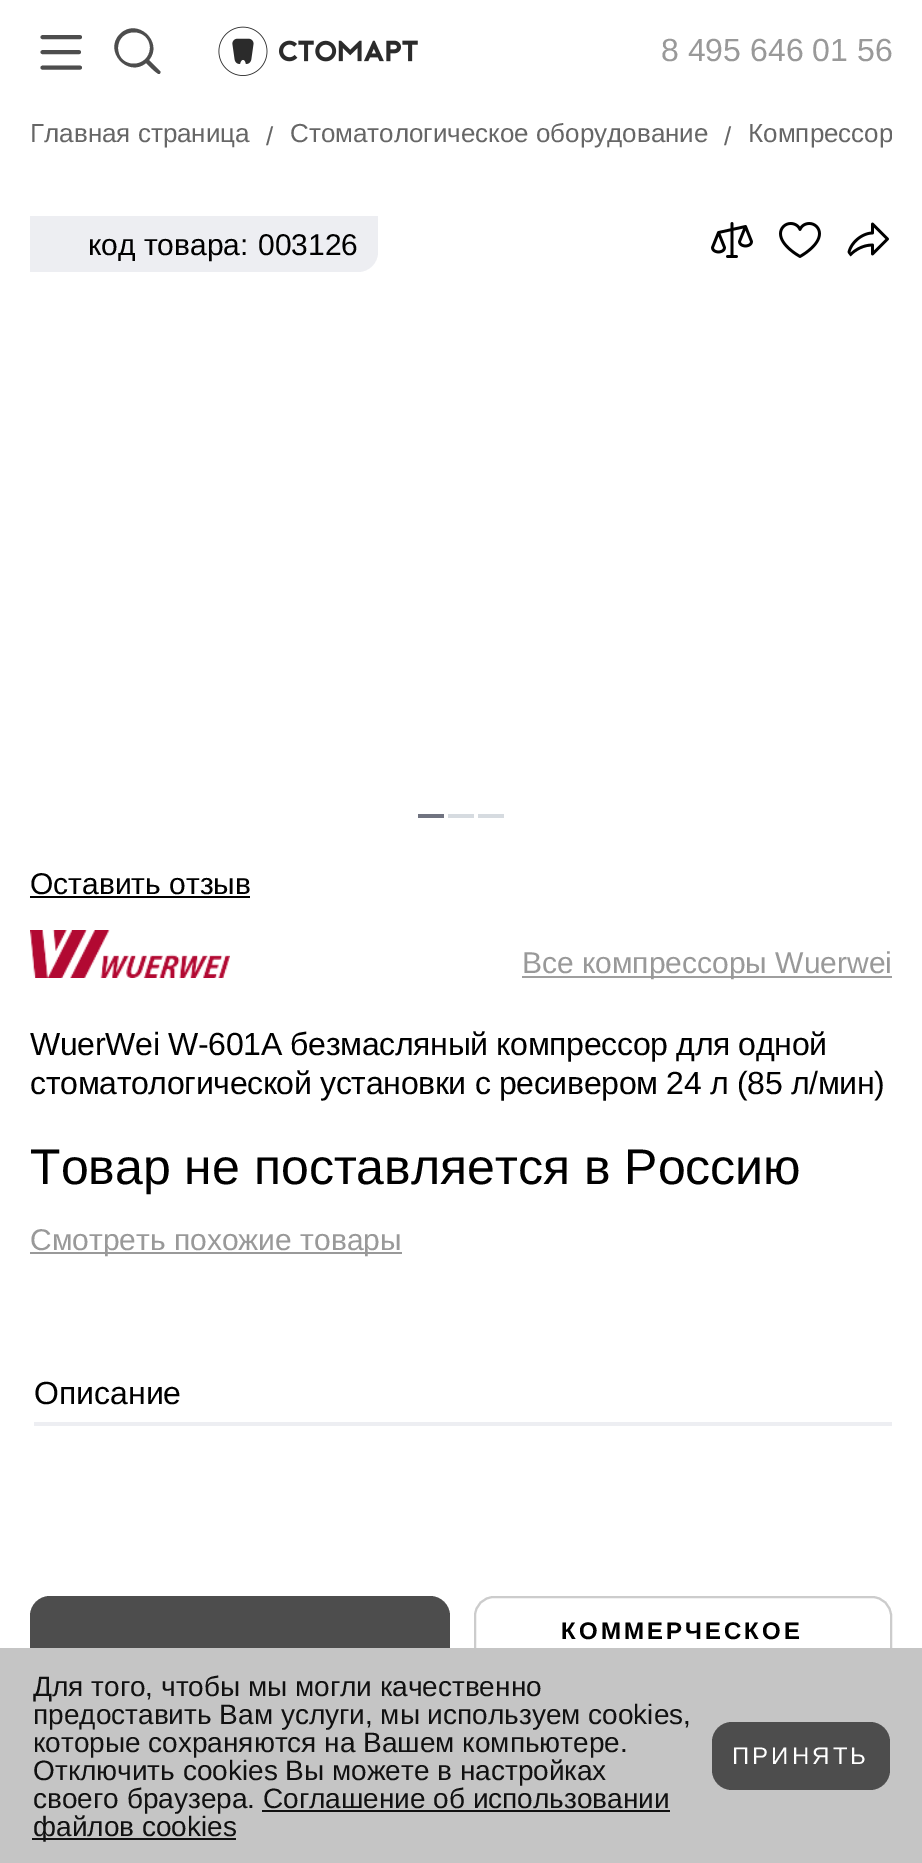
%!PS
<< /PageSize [922 1863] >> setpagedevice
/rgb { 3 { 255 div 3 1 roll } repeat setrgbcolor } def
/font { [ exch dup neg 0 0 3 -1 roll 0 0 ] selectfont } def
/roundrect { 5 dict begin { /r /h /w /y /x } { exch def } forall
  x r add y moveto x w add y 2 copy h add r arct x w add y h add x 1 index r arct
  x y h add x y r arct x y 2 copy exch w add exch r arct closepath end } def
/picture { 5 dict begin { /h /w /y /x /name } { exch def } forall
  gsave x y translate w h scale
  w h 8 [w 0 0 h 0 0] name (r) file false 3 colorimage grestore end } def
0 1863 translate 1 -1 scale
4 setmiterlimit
255 255 255 rgb
0 0 922 1863 rectfill
(img/1.rgb) 218 26 200 50 picture
77 77 77 rgb
3.9 setlinewidth
1 setlinecap
79 52 moveto 42.5 52 lineto 80 37 moveto 42.5 37 lineto 80 67.5 moveto 42.5 67.5 lineto stroke
160 71 moveto 149 60 lineto 164 42 137 17 120 34 curveto 103 51 128 78 146 63 curveto 148 65 157 74 159 74 curveto 160 74 161 72 160 71 curveto closepath 118 48 moveto 118 27 150 27 150 48 curveto 149 69 118 69 118 48 curveto closepath fill
237 238 242 rgb
30 216 moveto 378 216 lineto 378 252 lineto 378 263 369 272 358 272 curveto 30 272 lineto closepath fill
(img/2.rgb) 711 222 42 36 picture
(img/3.rgb) 779 222 42 36 picture
(img/4.rgb) 847 222 42 35 picture
[
  [418 814 26 4 112 115 128]
  [448 814 26 4 214 219 224]
  [478 814 26 4 214 219 224]
  [30 896 220 2 0 0 0]
] { aload pop rgb rectfill } forall
(img/5.rgb) 30 930 200 48 picture
158 158 158 rgb
522 976 370 2 rectfill
153 153 153 rgb
30 1252 372 2 rectfill
77 77 77 rgb
30 1596 420 100 20 roundrect fill
204 204 204 rgb
2 setlinewidth
0 setlinecap
475 1597 416 98 19 roundrect stroke
[
  [34 1422 858 4 237 238 242]
  [0 1648 922 215 197 197 197]
  [262 1810 408 2 17 17 17]
  [32 1838 204 2 17 17 17]
] { aload pop rgb rectfill } forall
77 77 77 rgb
712 1722 178 68 20 roundrect fill
/LiberationSans-Regular 32 font
153 153 153 rgb
661 61 moveto (8 495 646 01 56) show
/LiberationSans-Regular 26 font
102 102 102 rgb
[
  [(Главная страница) 30 142]
  [(/) 266 145]
  [(Стоматологическое оборудование) 290 142]
  [(/) 724 145]
] { aload pop moveto show } forall
gsave
30 118 862 30 rectclip
748 142 moveto (Компрессор) show
grestore
/LiberationSans-Regular 30 font
0 0 0 rgb
[
  [(код товара:) 88 255]
  [(003126) 258 255]
  [(Оставить отзыв) 30 894]
] { aload pop moveto show } forall
153 153 153 rgb
522 973 moveto (Все компрессоры Wuerwei) show
/LiberationSans-Regular 32 font
0 0 0 rgb
30 1055 moveto -0.32 0 (WuerWei W-601A безмасляный компрессор для одной) ashow
30 1094 moveto -0.32 0 (стоматологической установки с ресивером 24 л \(85 л/мин\)) ashow
/LiberationSans-Regular 50 font
30 1184 moveto (Товар не поставляется в Россию) show
/LiberationSans-Regular 30 font
153 153 153 rgb
30 1250 moveto (Смотреть похожие товары) show
/LiberationSans-Bold 24 font
0 0 0 rgb
561 1639 moveto 3.1 0 (КОММЕРЧЕСКОЕ) ashow
/LiberationSans-Regular 32 font
34 1404 moveto (Описание) show
/LiberationSans-Regular 28 font
17 17 17 rgb
[
  [(Для того, чтобы мы могли качественно) 33 1696]
  [(предоставить Вам услуги, мы используем cookies,) 33 1724]
  [(которые сохраняются на Вашем компьютере.) 33 1752]
  [(Отключить cookies Вы можете в настройках) 33 1780]
  [(своего браузера. Соглашение об использовании) 33 1808]
  [(файлов cookies) 33 1836]
] { aload pop moveto show } forall
/LiberationSans-Regular 24 font
255 255 255 rgb
732 1764 moveto 3.1 0 (ПРИНЯТЬ) ashow
showpage
